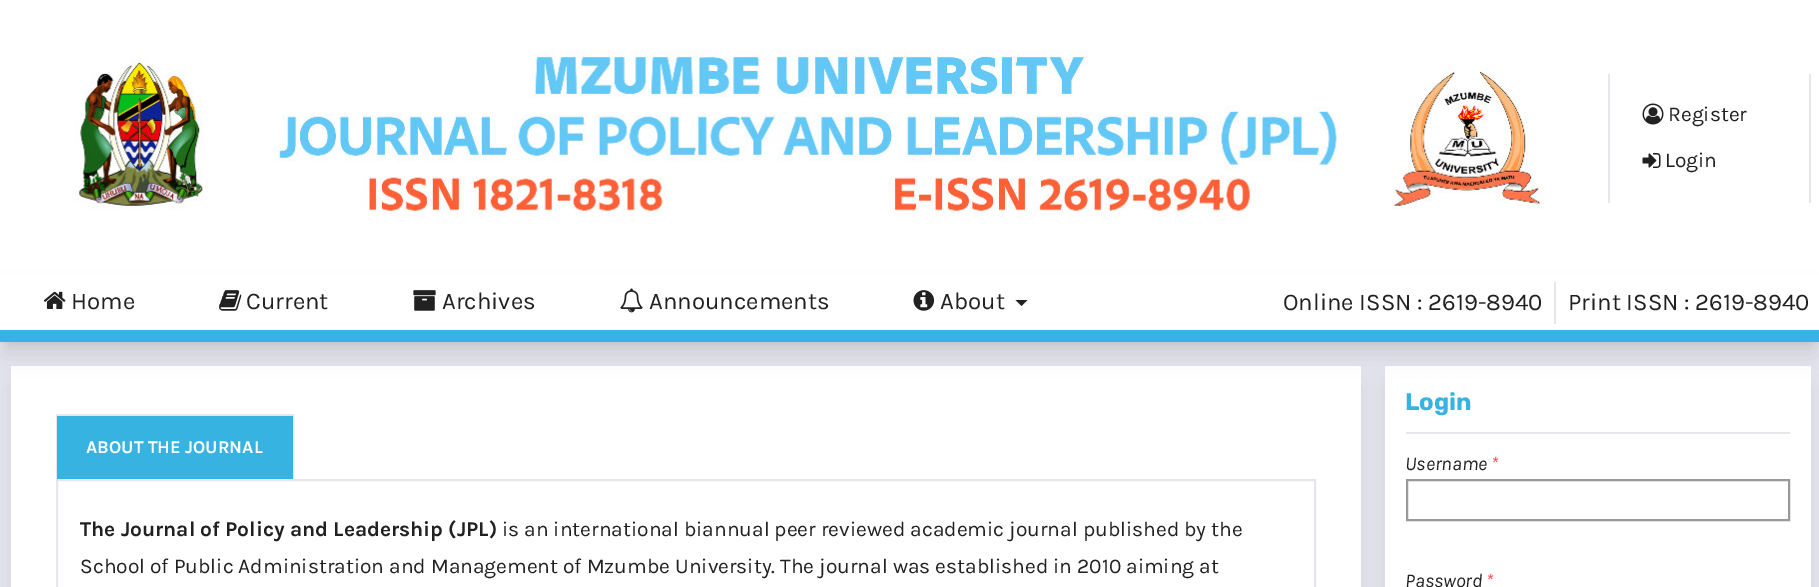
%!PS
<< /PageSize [1819 587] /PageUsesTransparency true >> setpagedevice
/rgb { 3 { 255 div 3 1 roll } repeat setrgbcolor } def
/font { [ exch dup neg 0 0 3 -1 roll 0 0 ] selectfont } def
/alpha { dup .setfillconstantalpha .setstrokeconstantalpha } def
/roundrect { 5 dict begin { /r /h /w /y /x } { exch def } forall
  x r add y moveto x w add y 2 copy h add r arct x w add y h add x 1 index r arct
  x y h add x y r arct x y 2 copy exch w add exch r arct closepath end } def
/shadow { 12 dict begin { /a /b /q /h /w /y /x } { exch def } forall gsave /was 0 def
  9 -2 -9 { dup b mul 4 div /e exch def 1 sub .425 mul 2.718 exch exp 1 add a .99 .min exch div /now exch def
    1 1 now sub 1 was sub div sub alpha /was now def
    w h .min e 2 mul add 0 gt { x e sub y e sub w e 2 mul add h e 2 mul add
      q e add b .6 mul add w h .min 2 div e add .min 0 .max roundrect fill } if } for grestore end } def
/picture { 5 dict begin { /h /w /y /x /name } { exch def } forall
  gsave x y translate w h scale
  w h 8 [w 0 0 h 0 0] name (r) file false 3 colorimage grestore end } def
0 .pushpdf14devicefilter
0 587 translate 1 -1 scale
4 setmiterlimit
227 228 237 rgb
0 0 1819 587 rectfill
255 255 255 rgb
0 0 1819 275 rectfill
(img/1.rgb) 75 50 1469 168 picture
229 231 235 rgb
1809 74 2 129 rectfill
1608 74 2 129 rectfill
(img/2.rgb) 1642 103 22 22 picture
(img/3.rgb) 1642 153 19 15 picture
0 0 0 rgb
6 287 1808 55 0 4.5 0.1 shadow
15 386 1341 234 0 11 0.1 shadow
255 255 255 rgb
11 366 1350 221 rectfill
0 0 0 rgb
1389 386 417 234 0 11 0.1 shadow
255 255 255 rgb
1385 366 426 221 rectfill
0 0 0 rgb
5 294 1810 59 0 11 0.1 shadow
255 255 255 rgb
0 275 1819 55 rectfill
55 179 226 rgb
0 330 1819 12 rectfill
(img/4.rgb) 43 291 23 18 picture
(img/5.rgb) 219 290 23 21 picture
(img/6.rgb) 413 290 23 21 picture
(img/7.rgb) 620 288 23 25 picture
(img/8.rgb) 913 290 22 21 picture
33 33 33 rgb
1015.5 300 moveto 1027.5 300 lineto 1021.5 306 lineto closepath fill
229 231 235 rgb
1554 282 2 42 rectfill
2 setlinewidth
57 415 236 64 rectstroke
55 179 226 rgb
57 416 236 63 rectfill
229 231 235 rgb
57 480 1258 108 rectstroke
1406 432 384 2 rectfill
153 153 153 rgb
1407 480 382 40 rectstroke
/Karla-Regular 21 font
33 33 33 rgb
1668 121 moveto (Register) show
1665 167 moveto (Login) show
/Karla-Regular 24 font
[
  [(Home) 71 309]
  [(Current) 246 309]
  [(Archives) 442 309]
  [(Announcements) 649 309]
  [(About) 940 309]
  [(Online ISSN : 2619-8940) 1283 310]
  [(Print ISSN : 2619-8940) 1568 310]
] { aload pop moveto show } forall
/Karla-Bold 18 font
255 255 255 rgb
86 453 moveto (ABOUT THE JOURNAL) show
/Karla-Bold 21 font
33 33 33 rgb
80 536 moveto (The Journal of Policy and Leadership \(JPL\)) show
/Karla-Regular 21 font
502 536 moveto (is an international biannual peer reviewed academic journal published by the) show
80 573 moveto (School of Public Administration and Management of Mzumbe University. The journal was established in 2010 aiming at) show
/Rubik-Bold 24 font
55 179 226 rgb
1405 410 moveto (Login) show
/Karla-Italic 19.5 font
33 33 33 rgb
1405 470 moveto (Username) show
255 64 64 rgb
1491 470 moveto (*) show
33 33 33 rgb
1405 587 moveto (Password) show
255 64 64 rgb
1486 587 moveto (*) show
.poppdf14devicefilter showpage
